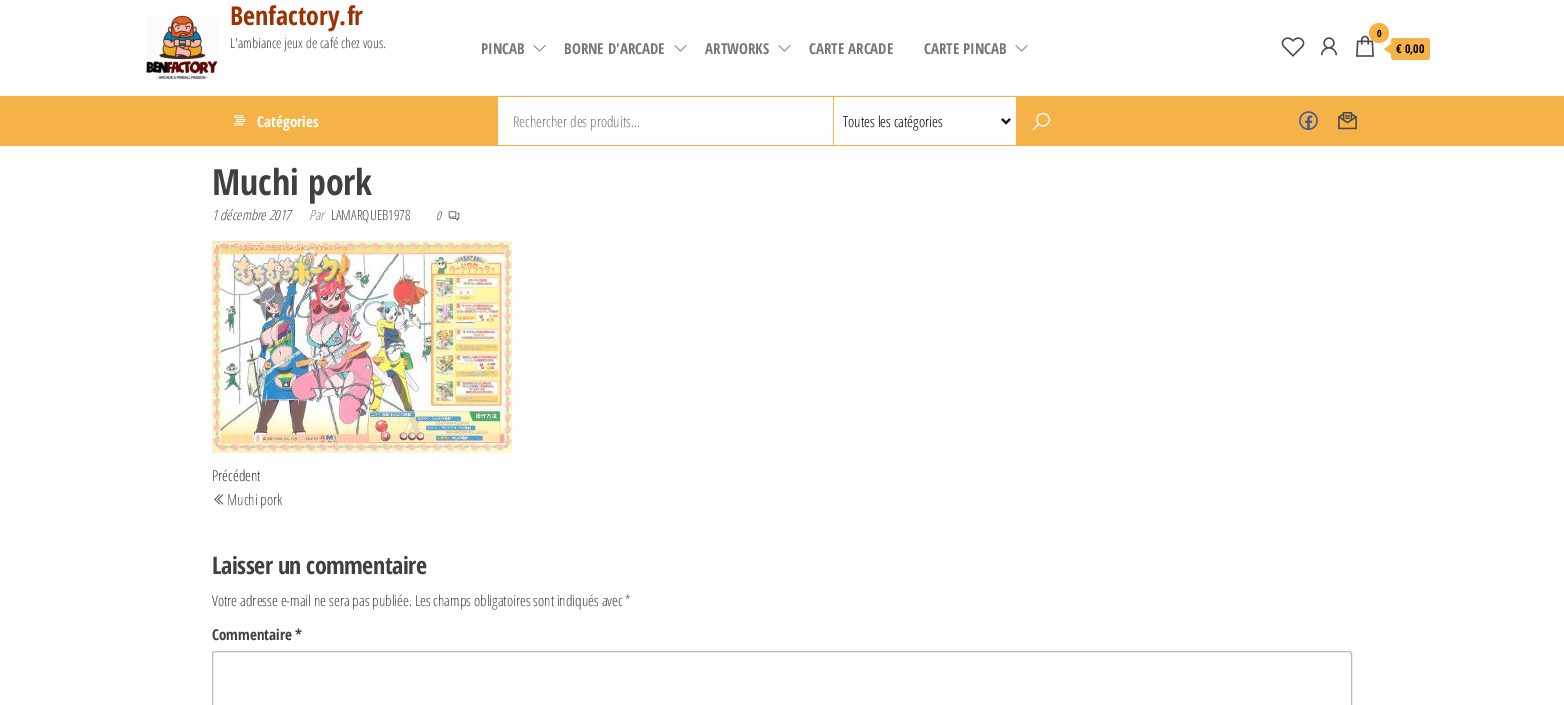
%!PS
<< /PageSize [1564 705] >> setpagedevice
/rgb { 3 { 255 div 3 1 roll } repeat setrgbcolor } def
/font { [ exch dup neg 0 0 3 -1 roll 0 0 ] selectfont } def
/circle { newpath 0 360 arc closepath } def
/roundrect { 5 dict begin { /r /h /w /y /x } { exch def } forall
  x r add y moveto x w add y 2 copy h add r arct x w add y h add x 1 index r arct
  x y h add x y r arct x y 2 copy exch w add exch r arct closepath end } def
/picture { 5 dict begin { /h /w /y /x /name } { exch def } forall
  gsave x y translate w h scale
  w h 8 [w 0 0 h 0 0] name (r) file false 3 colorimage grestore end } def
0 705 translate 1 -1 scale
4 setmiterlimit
255 255 255 rgb
0 0 1564 705 rectfill
246 246 246 rgb
0 95 1564 1 rectfill
(img/1.rgb) 146 15 72 65 picture
(img/2.rgb) 533 45 13 7 picture
(img/2.rgb) 674 45 13 7 picture
(img/2.rgb) 778 45 13 7 picture
(img/2.rgb) 1015 45 13 7 picture
(img/3.rgb) 1281 37 24 20 picture
(img/4.rgb) 1320 37 18 19 picture
(img/5.rgb) 1356 35 18 22 picture
245 178 70 rgb
1379 33 10 circle fill
1391 38 39 22 3 roundrect fill
1391 44 moveto 1391 54 lineto 1384 49 lineto closepath fill
0 96 1564 50 rectfill
246 246 246 rgb
0 146 1564 1 rectfill
(img/6.rgb) 234 115 12 11 picture
255 255 255 rgb
498 97 518 48 rectfill
245 178 70 rgb
833 97 1 48 rectfill
0 0 0 rgb
2 setlinewidth
1002 119 moveto 1006 123 lineto 1010 119 lineto stroke
(img/7.rgb) 1032 112 18 19 picture
(img/8.rgb) 1299 111 19 19 picture
(img/9.rgb) 1338 112 19 18 picture
(img/10.rgb) 448 211 12 10 picture
(img/11.rgb) 212 241 300 212 picture
(img/12.rgb) 214 494 10 11 picture
187 187 187 rgb
1 setlinewidth
212.5 651.5 1139 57 2.5 roundrect stroke
/OpenSansCondensed-Bold 26 font
158 48 1 rgb
230 25 moveto (Benfactory.fr) show
/OpenSansCondensed-Light 14 font
64 64 64 rgb
230 48 moveto (L'ambiance jeux de café chez vous.) show
/OpenSansCondensed-Bold 15 font
119 119 119 rgb
[
  [(PINCAB) 481 54]
  [(BORNE D'ARCADE) 564 54]
  [(ARTWORKS) 705 54]
  [(CARTE ARCADE) 809 54]
  [(CARTE PINCAB) 924 54]
] { aload pop moveto show } forall
/OpenSansCondensed-Bold 10 font
0 0 0 rgb
1377 37 moveto (0) show
/OpenSansCondensed-Bold 12 font
1396 53 moveto (€ 0,00) show
/OpenSansCondensed-Bold 15 font
255 255 255 rgb
257 127 moveto (Catégories) show
/OpenSansCondensed-Light 15 font
119 119 119 rgb
513 127 moveto (Rechercher des produits...) show
0 0 0 rgb
843 127 moveto (Toutes les catégories) show
/OpenSansCondensed-Bold 36 font
64 64 64 rgb
212 195 moveto (Muchi pork) show
/OpenSansCondensed-LightItalic 14 font
212 220 moveto (1 décembre 2017) show
119 119 119 rgb
309 220 moveto (Par) show
/OpenSansCondensed-Light 14 font
72 72 72 rgb
331 220 moveto (LAMARQUEB1978) show
/OpenSansCondensed-LightItalic 12 font
64 64 64 rgb
436 220 moveto (0) show
/OpenSansCondensed-Light 15 font
51 51 51 rgb
212 481 moveto (Précédent) show
72 72 72 rgb
227 505 moveto (Muchi pork) show
/OpenSansCondensed-Bold 24 font
64 64 64 rgb
212 574 moveto -0.5 0 (Laisser un commentaire) ashow
/OpenSansCondensed-Light 15 font
212 606 moveto (Votre adresse e-mail ne sera pas publiée. Les champs obligatoires sont indiqués avec *) show
/OpenSansCondensed-Bold 15 font
212 640 moveto (Commentaire *) show
showpage
